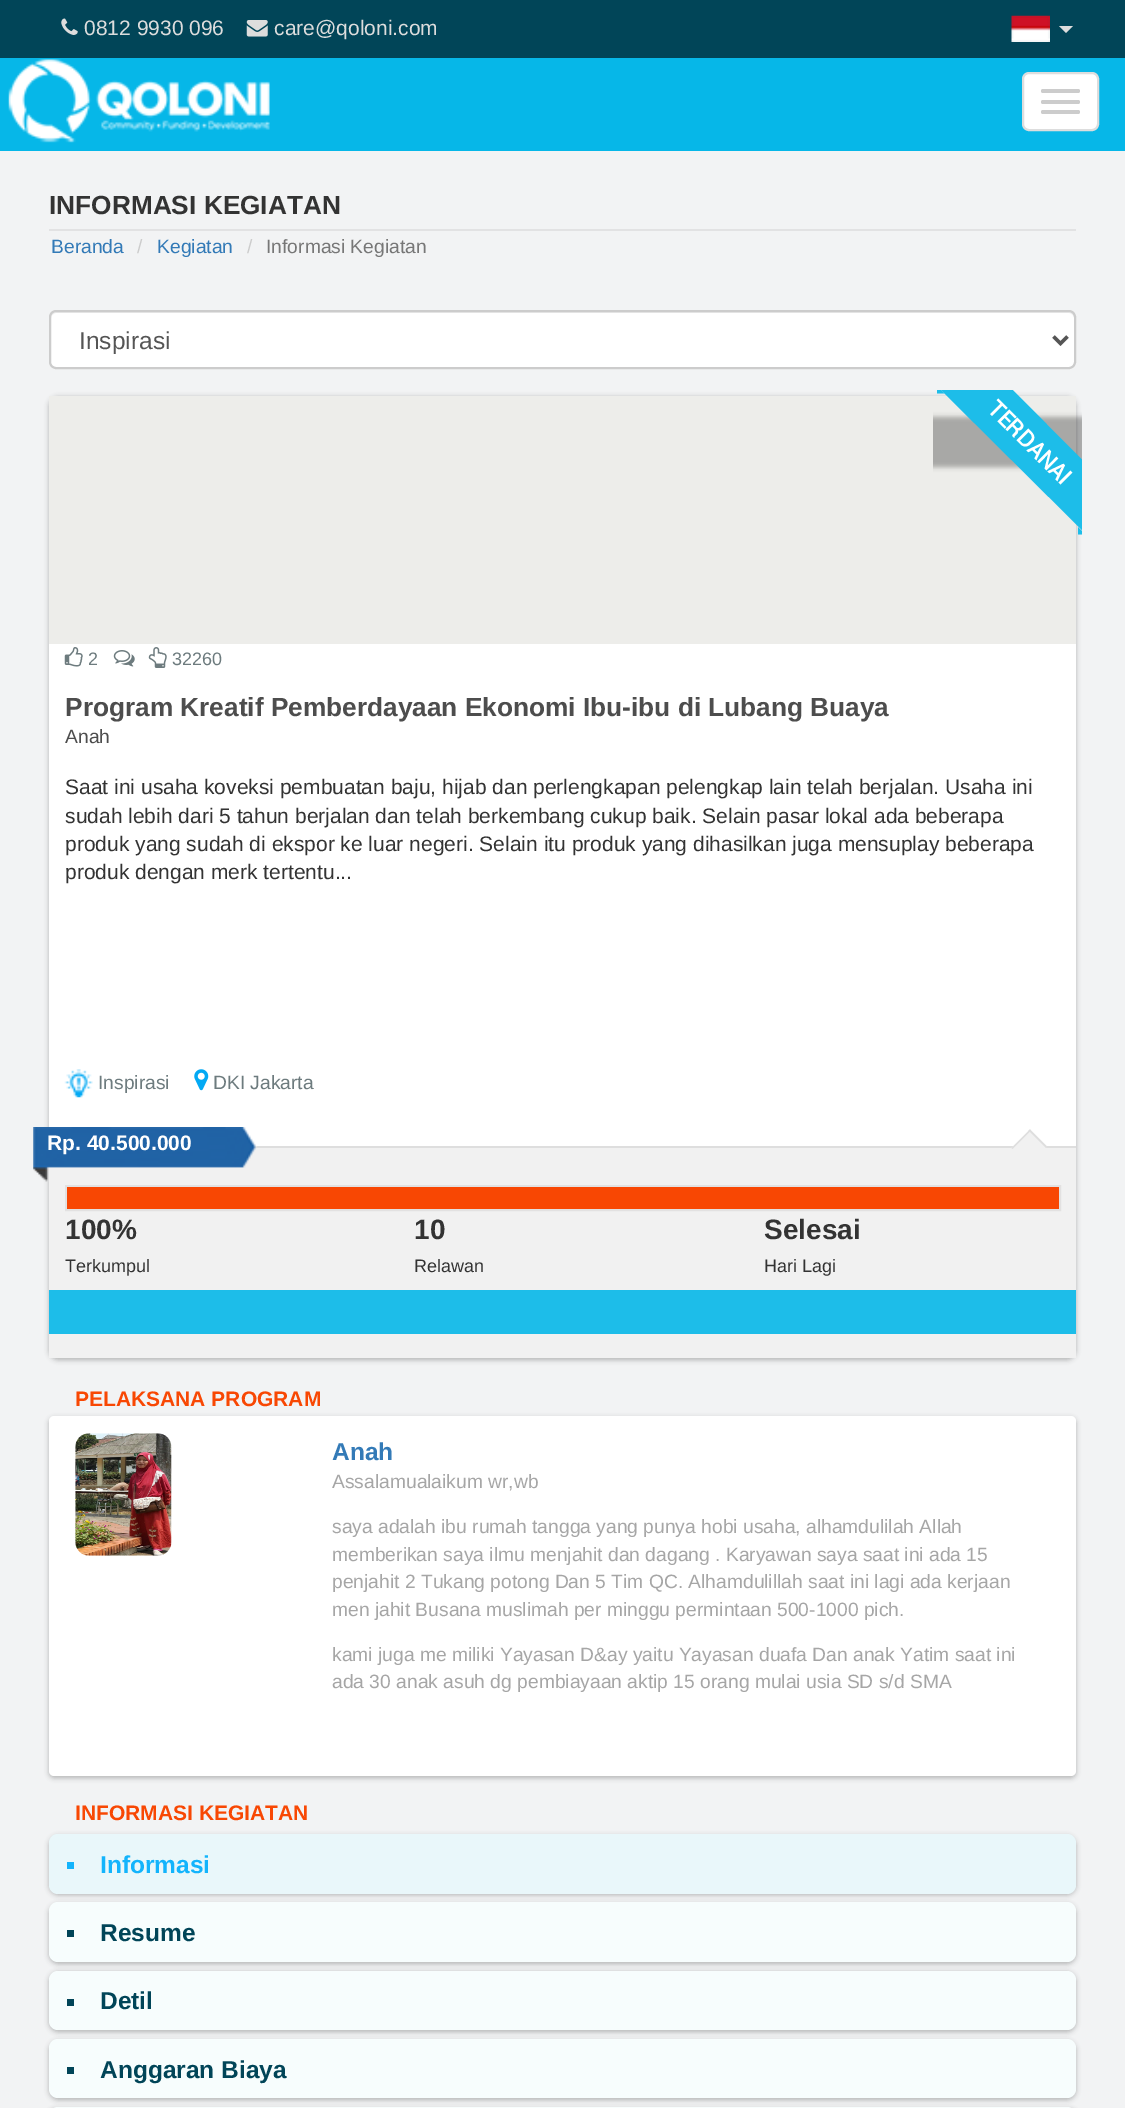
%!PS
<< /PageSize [1125 2108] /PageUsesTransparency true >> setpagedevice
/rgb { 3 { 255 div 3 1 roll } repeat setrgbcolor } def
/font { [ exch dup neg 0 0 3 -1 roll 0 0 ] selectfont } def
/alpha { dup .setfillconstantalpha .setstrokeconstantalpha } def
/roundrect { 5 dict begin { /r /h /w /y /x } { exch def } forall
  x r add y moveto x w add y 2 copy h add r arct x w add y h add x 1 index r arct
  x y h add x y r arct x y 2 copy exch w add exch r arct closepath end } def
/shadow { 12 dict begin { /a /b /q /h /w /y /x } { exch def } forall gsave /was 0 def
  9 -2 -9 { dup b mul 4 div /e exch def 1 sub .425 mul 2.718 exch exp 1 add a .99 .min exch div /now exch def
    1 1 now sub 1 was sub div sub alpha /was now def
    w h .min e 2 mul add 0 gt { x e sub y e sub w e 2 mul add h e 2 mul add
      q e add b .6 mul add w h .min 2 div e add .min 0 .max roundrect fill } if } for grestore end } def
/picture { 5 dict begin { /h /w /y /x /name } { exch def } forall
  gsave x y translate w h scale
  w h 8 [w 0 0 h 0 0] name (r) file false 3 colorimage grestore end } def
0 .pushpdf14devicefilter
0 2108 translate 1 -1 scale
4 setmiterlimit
242 243 244 rgb
0 0 1125 2108 rectfill
1 69 88 rgb
0 0 1125 58 rectfill
(img/1.rgb) 61 18 17 17 picture
(img/2.rgb) 246 20 22 17 picture
(img/3.rgb) 1011 15 39 27 picture
221 221 221 rgb
1059 26 moveto 1073 26 lineto 1066 33 lineto closepath fill
6 183 232 rgb
0 58 1125 93 rectfill
(img/4.rgb) 8 59 262 84 picture
255 255 255 rgb
1023 73 75 57 6 roundrect gsave fill grestore
221 221 221 rgb
2 setlinewidth
stroke
204 204 204 rgb
1041 89 39 4 2 roundrect fill
1041 100 39 4 2 roundrect fill
1041 110 39 4 2 roundrect fill
226 226 227 rgb
49 229 1027 2 rectfill
255 255 255 rgb
49 310 1027 59 7 roundrect fill
236 236 236 rgb
56 313 moveto 1069 313 lineto 1072 313 1074 316 1074 318 curveto 1074 364 lineto 1073 367 lineto 1074 366 1075 364 1075 363 curveto 1075 317 lineto 1075 314 1073 312 1070 312 curveto 56 312 lineto 53 312 51 314 51 317 curveto 51 318 lineto 51 316 53 313 56 313 curveto closepath fill
204 204 204 rgb
50 311 1025 57 6 roundrect stroke
85 85 85 rgb
3.5 setlinewidth
1053.5 336.5 moveto 1060.5 343.5 lineto 1067.5 336.5 lineto stroke
0 0 0 rgb
49 397 1027 963 9 2.5 0.25 shadow
255 255 255 rgb
49 644 1027 502 rectfill
237 237 234 rgb
49 396 1027 248 rectfill
gsave
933 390 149 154 rectclip
0 0 0 rgb
924 417 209 50 0 2.5 0.3 shadow
grestore
gsave
933 390 149 154 rectclip
29 189 233 rgb
973 350 moveto 1121 499 lineto 1086 534 lineto 937 386 lineto closepath fill
937 386 moveto 944.5 393.5 lineto 937 393.5 lineto closepath fill
1078 527 moveto 1085.5 534.5 lineto 1078 534.5 lineto closepath fill
grestore
(img/5.rgb) 64 647 19 20 picture
(img/6.rgb) 113 650 22 17 picture
(img/7.rgb) 148 647 19 21 picture
(img/8.rgb) 64 1069 29 29 picture
(img/9.rgb) 194 1069 15 22 picture
241 241 241 rgb
49 1148 1027 210 rectfill
222 222 222 rgb
254 1146 822 2 rectfill
(img/10.rgb) 33 1127 224 55 picture
241 241 241 rgb
1030 1129.5 moveto 1047 1146.5 lineto 1028.5 1165 lineto 1011.5 1148 lineto closepath fill
222 222 222 rgb
1030 1129.5 moveto 1047 1146.5 lineto 1046 1148 lineto 1028.5 1130.5 lineto closepath fill
1030 1129.5 moveto 1031 1130.5 lineto 1012.5 1149 lineto 1011.5 1148 lineto closepath fill
226 225 225 rgb
2 setlinewidth
66 1186 994 24 rectstroke
248 71 3 rgb
67 1187 992 22 rectfill
29 189 233 rgb
49 1290 1027 44 rectfill
0 0 0 rgb
49 1418 1027 360 5 2.5 0.25 shadow
255 255 255 rgb
49 1416 1027 360 5 roundrect fill
(img/11.rgb) 75 1433 97 123 picture
0 0 0 rgb
49 1836 1027 59 9 2.5 0.25 shadow
233 247 250 rgb
49 1834 1027 60 9 roundrect fill
19 180 252 rgb
67 1862 7 7 rectfill
0 0 0 rgb
49 1904 1027 60 9 2.5 0.25 shadow
247 253 253 rgb
49 1902 1027 60 9 roundrect fill
1 69 88 rgb
67 1930 7 7 rectfill
0 0 0 rgb
49 1972 1027 60 9 2.5 0.25 shadow
247 253 253 rgb
49 1971 1027 59 9 roundrect fill
1 69 88 rgb
67 1999 7 7 rectfill
0 0 0 rgb
49 2041 1027 59 9 2.5 0.25 shadow
247 253 253 rgb
49 2039 1027 59 9 roundrect fill
1 69 88 rgb
67 2067 7 7 rectfill
0 0 0 rgb
49 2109 1027 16 9 2.5 0.25 shadow
247 253 253 rgb
49 2107 1027 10 9 roundrect fill
/LiberationSans-Regular 21 font
221 221 221 rgb
84 35 moveto (0812 9930 096) show
274 35 moveto (care@qoloni.com) show
/LiberationSans-Bold 26.25 font
51 51 51 rgb
49 214 moveto (INFORMASI KEGIATAN) show
/LiberationSans-Regular 19.25 font
51 122 183 rgb
51 253 moveto (Beranda) show
204 204 204 rgb
137 253 moveto (/) show
51 122 183 rgb
157 253 moveto (Kegiatan) show
204 204 204 rgb
247 253 moveto (/) show
119 119 119 rgb
266 253 moveto (Informasi Kegiatan) show
/LiberationSans-Regular 24.5 font
85 85 85 rgb
79 349 moveto (Inspirasi) show
/Roboto-Bold 22.75 font
255 255 255 rgb
gsave 986 410 translate 45 rotate 0 0 moveto (TERDANAI) show grestore
/LiberationSans-Regular 18 font
109 123 126 rgb
88 665 moveto (2) show
172 665 moveto (32260) show
/LiberationSans-Bold 26.25 font
77 77 77 rgb
65 716 moveto (Program Kreatif Pemberdayaan Ekonomi Ibu-ibu di Lubang Buaya) show
/LiberationSans-Regular 19.25 font
65 743 moveto (Anah) show
/LiberationSans-Regular 21 font
51 51 51 rgb
[
  [(Saat ini usaha koveksi pembuatan baju, hijab dan perlengkapan pelengkap lain telah berjalan. Usaha ini) 65 794]
  [(sudah lebih dari 5 tahun berjalan dan telah berkembang cukup baik. Selain pasar lokal ada beberapa) 65 823]
  [(produk yang sudah di ekspor ke luar negeri. Selain itu produk yang dihasilkan juga mensuplay beberapa) 65 851]
  [(produk dengan merk tertentu...) 65 879]
] { aload pop moveto show } forall
/LiberationSans-Regular 19.25 font
109 123 126 rgb
98 1089 moveto (Inspirasi) show
213 1089 moveto (DKI Jakarta) show
/LiberationSans-Bold 21 font
255 255 255 rgb
47 1150 moveto (Rp. 40.500.000) show
/LiberationSans-Bold 28 font
51 51 51 rgb
65 1239 moveto (100%) show
/LiberationSans-Regular 18 font
65 1272 moveto (Terkumpul) show
/LiberationSans-Bold 28 font
414 1239 moveto (10) show
/LiberationSans-Regular 18 font
414 1272 moveto (Relawan) show
/LiberationSans-Bold 28 font
764 1239 moveto (Selesai) show
/LiberationSans-Regular 18 font
764 1272 moveto (Hari Lagi) show
/LiberationSans-Bold 21 font
248 71 3 rgb
75 1406 moveto (PELAKSANA PROGRAM) show
/LiberationSans-Bold 24.5 font
51 122 183 rgb
332 1460 moveto (Anah) show
/LiberationSans-Regular 19.25 font
166 166 166 rgb
[
  [(Assalamualaikum wr,wb) 332 1488]
  [(saya adalah ibu rumah tangga yang punya hobi usaha, alhamdulilah Allah) 332 1533]
  [(memberikan saya ilmu menjahit dan dagang . Karyawan saya saat ini ada 15) 332 1561]
  [(penjahit 2 Tukang potong Dan 5 Tim QC. Alhamdulillah saat ini lagi ada kerjaan) 332 1588]
  [(men jahit Busana muslimah per minggu permintaan 500-1000 pich.) 332 1616]
  [(kami juga me miliki Yayasan D&ay yaitu Yayasan duafa Dan anak Yatim saat ini) 332 1661]
  [(ada 30 anak asuh dg pembiayaan aktip 15 orang mulai usia SD s/d SMA) 332 1688]
] { aload pop moveto show } forall
/LiberationSans-Bold 21 font
248 71 3 rgb
75 1820 moveto (INFORMASI KEGIATAN) show
/LiberationSans-Bold 24.5 font
19 180 252 rgb
100 1873 moveto (Informasi) show
1 69 88 rgb
[
  [(Resume) 100 1941]
  [(Detil) 100 2009]
  [(Anggaran Biaya) 100 2078]
] { aload pop moveto show } forall
.poppdf14devicefilter showpage
